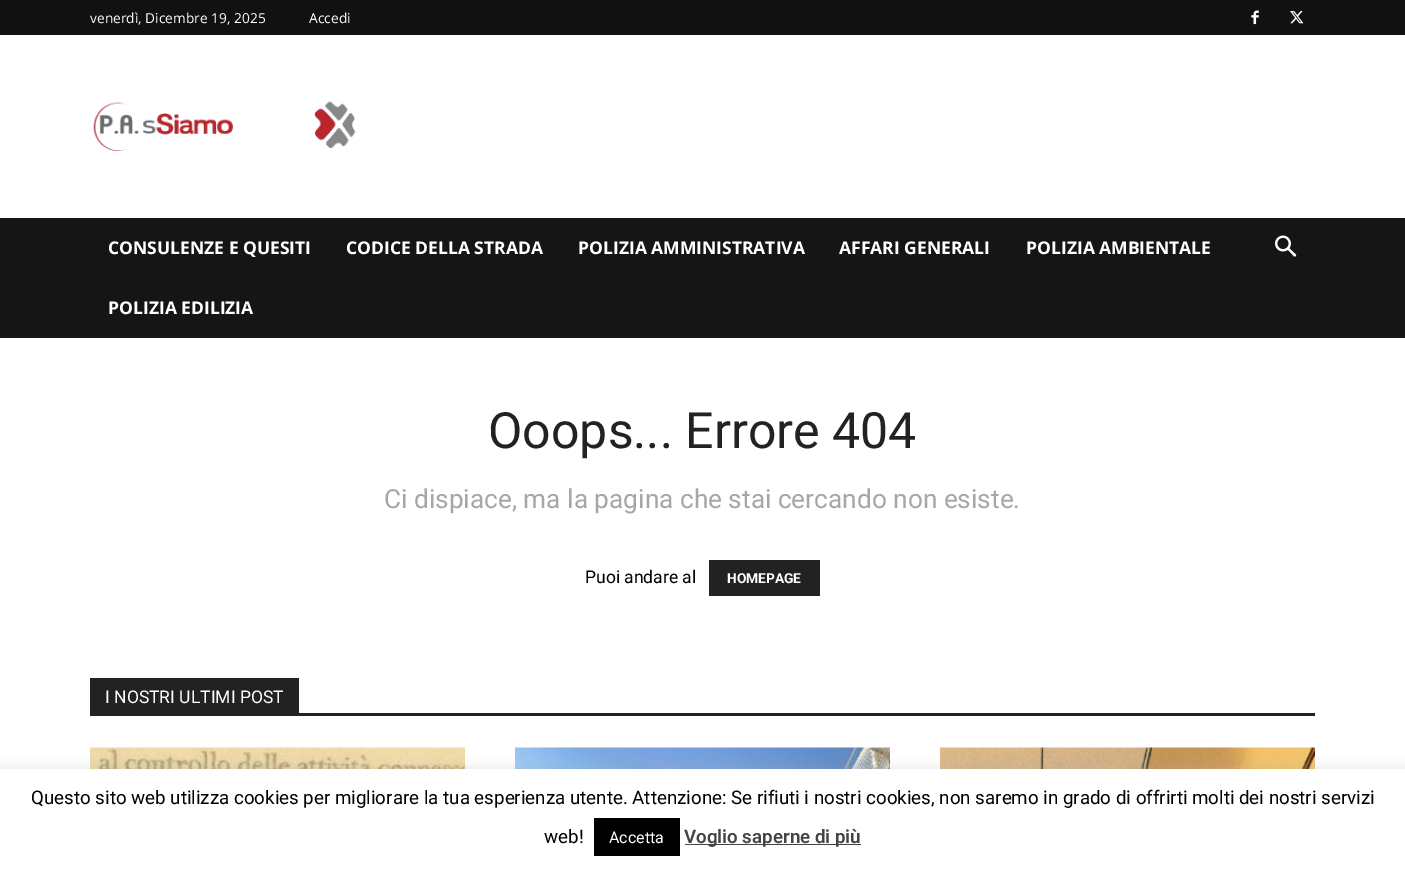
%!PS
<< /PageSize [1405 871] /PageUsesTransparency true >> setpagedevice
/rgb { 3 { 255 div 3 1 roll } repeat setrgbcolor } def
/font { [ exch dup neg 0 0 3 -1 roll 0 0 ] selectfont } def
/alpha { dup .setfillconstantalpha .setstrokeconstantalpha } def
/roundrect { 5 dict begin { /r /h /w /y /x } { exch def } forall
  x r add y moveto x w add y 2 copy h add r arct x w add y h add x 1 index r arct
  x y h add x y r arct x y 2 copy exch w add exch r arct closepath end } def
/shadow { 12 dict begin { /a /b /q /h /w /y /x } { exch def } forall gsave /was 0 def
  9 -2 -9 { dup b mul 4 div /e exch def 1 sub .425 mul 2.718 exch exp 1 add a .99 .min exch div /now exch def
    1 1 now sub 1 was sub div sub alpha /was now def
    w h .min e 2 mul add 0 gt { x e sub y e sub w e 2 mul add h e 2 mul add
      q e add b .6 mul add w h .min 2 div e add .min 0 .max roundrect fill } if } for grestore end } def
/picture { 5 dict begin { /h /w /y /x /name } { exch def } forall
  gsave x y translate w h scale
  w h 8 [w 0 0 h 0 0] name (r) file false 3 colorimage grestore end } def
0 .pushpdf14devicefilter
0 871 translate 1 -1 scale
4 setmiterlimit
255 255 255 rgb
0 0 1405 871 rectfill
17 17 17 rgb
0 0 1405 35 rectfill
(img/1.rgb) 1251 10 8 15 picture
(img/2.rgb) 1290 11 14 13 picture
(img/3.rgb) 93 101 263 50 picture
21 21 21 rgb
0 218 1405 120 rectfill
(img/4.rgb) 1275 235 22 22 picture
[
  [709 560 111 36 34 34 34]
  [90 713 1225 3 34 34 34]
  [90 678 209 35 34 34 34]
] { aload pop rgb rectfill } forall
(img/5.rgb) 90 747 375 22 picture
(img/6.rgb) 515 747 375 22 picture
(img/7.rgb) 940 747 375 22 picture
172 171 171 rgb
0 768 1405 102 0 6 0.3 shadow
[
  [0 769 1405 102 255 255 255]
  [594 818 86 38 0 0 0]
  [685 844 176 1 68 68 68]
] { aload pop rgb rectfill } forall
/OpenSans-Regular 13.75 font
255 255 255 rgb
90 23 moveto (venerdì, Dicembre 19, 2025) show
309 23 moveto (Accedi) show
/OpenSans-Bold 17.5 font
[
  [(CONSULENZE E QUESITI) 108 254]
  [(CODICE DELLA STRADA) 346 254]
  [(POLIZIA AMMINISTRATIVA) 578 254]
  [(AFFARI GENERALI) 839 254]
  [(POLIZIA AMBIENTALE) 1026 254]
  [(POLIZIA EDILIZIA) 108 314]
] { aload pop moveto show } forall
/Roboto-Regular 50 font
34 34 34 rgb
488 448 moveto (Ooops... Errore 404) show
/Roboto-Regular 26.25 font
166 166 166 rgb
384 508 moveto (Ci dispiace, ma la pagina che stai cercando non esiste.) show
/Roboto-Regular 17.5 font
0 0 0 rgb
585 583 moveto (Puoi andare al) show
/Roboto-Bold 13.75 font
255 255 255 rgb
727 583 moveto (HOMEPAGE) show
/Roboto-Regular 17.5 font
105 703 moveto (I NOSTRI ULTIMI POST) show
/Roboto-Regular 18.75 font
0 0 0 rgb
31 804 moveto (Questo sito web utilizza cookies per migliorare la tua esperienza utente. Attenzione: Se rifiuti i nostri cookies, non saremo in grado di offrirti molti dei nostri servizi) show
544 843 moveto (web!) show
/Roboto-Regular 16 font
255 255 255 rgb
609 843 moveto (Accetta) show
/Roboto-SemiBold 18.75 font
68 68 68 rgb
684 843 moveto (Voglio saperne di più) show
.poppdf14devicefilter showpage
